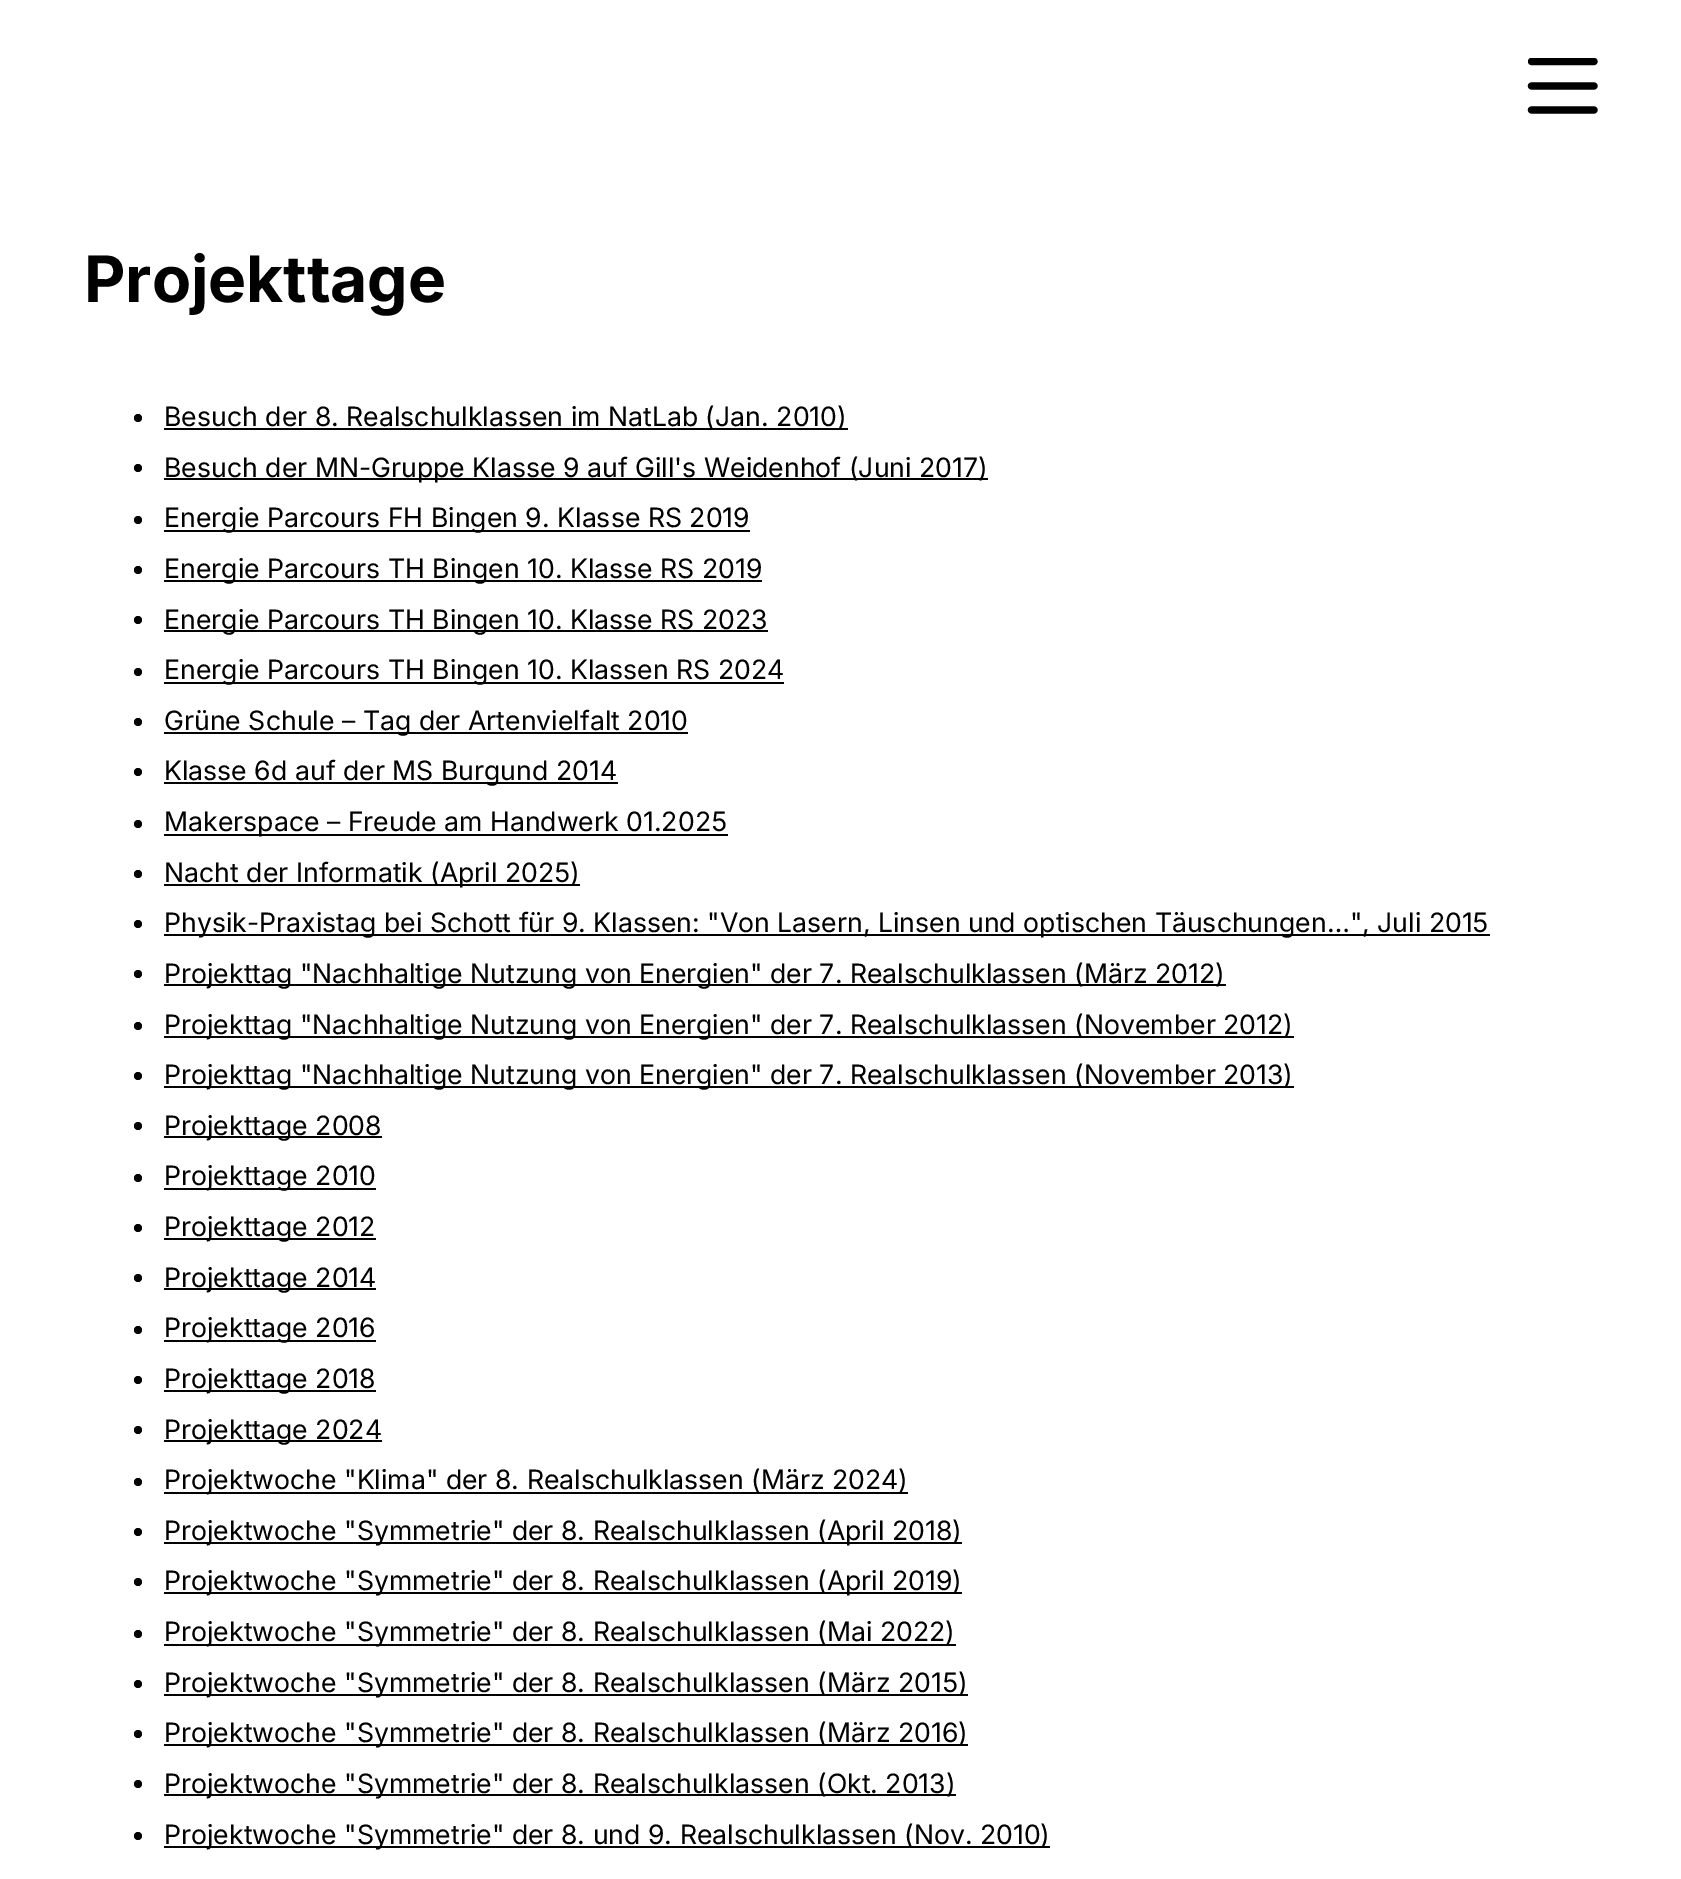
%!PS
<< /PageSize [1681 1879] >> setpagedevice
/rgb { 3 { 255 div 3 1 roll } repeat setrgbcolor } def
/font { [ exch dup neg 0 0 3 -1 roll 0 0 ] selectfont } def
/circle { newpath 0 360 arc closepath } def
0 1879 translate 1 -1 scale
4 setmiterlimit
255 255 255 rgb
0 0 1681 1879 rectfill
gsave
1528 58 70 56 rectclip
0 0 0 rgb
7.2 setlinewidth
1 setlinecap
1 setlinejoin
1531.5 61.5 moveto 1594 61.5 lineto stroke
grestore
0 0 0 rgb
7.2 setlinewidth
1 setlinecap
1 setlinejoin
1531.5 86 moveto 1594 86 lineto stroke
1531.5 110 moveto 1594 110 lineto stroke
138 418 4 circle fill
164 428 684 2 rectfill
138 468 4 circle fill
164 478 824 2 rectfill
138 520 4 circle fill
164 530 586 2 rectfill
138 570 4 circle fill
164 580 598 2 rectfill
138 620 4 circle fill
164 630 604 2 rectfill
138 672 4 circle fill
164 682 620 2 rectfill
138 722 4 circle fill
164 732 524 2 rectfill
138 772 4 circle fill
164 782 454 2 rectfill
138 824 4 circle fill
164 834 564 2 rectfill
138 874 4 circle fill
164 884 416 2 rectfill
138 924 4 circle fill
164 934 1326 2 rectfill
138 974 4 circle fill
164 984 1062 2 rectfill
138 1026 4 circle fill
164 1036 1130 2 rectfill
138 1076 4 circle fill
164 1086 1130 2 rectfill
138 1126 4 circle fill
164 1136 218 2 rectfill
138 1178 4 circle fill
164 1188 212 2 rectfill
138 1228 4 circle fill
164 1238 212 2 rectfill
138 1278 4 circle fill
164 1288 212 2 rectfill
138 1330 4 circle fill
164 1340 212 2 rectfill
138 1380 4 circle fill
164 1390 212 2 rectfill
138 1430 4 circle fill
164 1440 218 2 rectfill
138 1482 4 circle fill
164 1492 744 2 rectfill
138 1532 4 circle fill
164 1542 798 2 rectfill
138 1582 4 circle fill
164 1592 798 2 rectfill
138 1634 4 circle fill
164 1644 792 2 rectfill
138 1684 4 circle fill
164 1694 804 2 rectfill
138 1734 4 circle fill
164 1744 804 2 rectfill
138 1784 4 circle fill
164 1794 792 2 rectfill
138 1836 4 circle fill
164 1846 886 2 rectfill
/Inter-Bold 64 font
84 302 moveto (Projekttage) show
/Inter-Regular 26.65 font
[
  [(Besuch der 8. Realschulklassen im NatLab \(Jan. 2010\)) 164 426]
  [(Besuch der MN-Gruppe Klasse 9 auf Gill's Weidenhof \(Juni 2017\)) 164 477]
  [(Energie Parcours FH Bingen 9. Klasse RS 2019) 164 527]
  [(Energie Parcours TH Bingen 10. Klasse RS 2019) 164 578]
  [(Energie Parcours TH Bingen 10. Klasse RS 2023) 164 629]
  [(Energie Parcours TH Bingen 10. Klassen RS 2024) 164 679]
  [(Grüne Schule – Tag der Artenvielfalt 2010) 164 730]
  [(Klasse 6d auf der MS Burgund 2014) 164 780]
  [(Makerspace – Freude am Handwerk 01.2025) 164 831]
  [(Nacht der Informatik \(April 2025\)) 164 882]
  [(Physik-Praxistag bei Schott für 9. Klassen: "Von Lasern, Linsen und optischen Täuschungen…", Juli 2015) 164 932]
  [(Projekttag "Nachhaltige Nutzung von Energien" der 7. Realschulklassen \(März 2012\)) 164 983]
  [(Projekttag "Nachhaltige Nutzung von Energien" der 7. Realschulklassen \(November 2012\)) 164 1034]
  [(Projekttag "Nachhaltige Nutzung von Energien" der 7. Realschulklassen \(November 2013\)) 164 1084]
  [(Projekttage 2008) 164 1135]
  [(Projekttage 2010) 164 1185]
  [(Projekttage 2012) 164 1236]
  [(Projekttage 2014) 164 1287]
  [(Projekttage 2016) 164 1337]
  [(Projekttage 2018) 164 1388]
  [(Projekttage 2024) 164 1439]
  [(Projektwoche "Klima" der 8. Realschulklassen \(März 2024\)) 164 1489]
  [(Projektwoche "Symmetrie" der 8. Realschulklassen \(April 2018\)) 164 1540]
  [(Projektwoche "Symmetrie" der 8. Realschulklassen \(April 2019\)) 164 1590]
  [(Projektwoche "Symmetrie" der 8. Realschulklassen \(Mai 2022\)) 164 1641]
  [(Projektwoche "Symmetrie" der 8. Realschulklassen \(März 2015\)) 164 1692]
  [(Projektwoche "Symmetrie" der 8. Realschulklassen \(März 2016\)) 164 1742]
  [(Projektwoche "Symmetrie" der 8. Realschulklassen \(Okt. 2013\)) 164 1793]
  [(Projektwoche "Symmetrie" der 8. und 9. Realschulklassen \(Nov. 2010\)) 164 1844]
] { aload pop moveto show } forall
showpage
